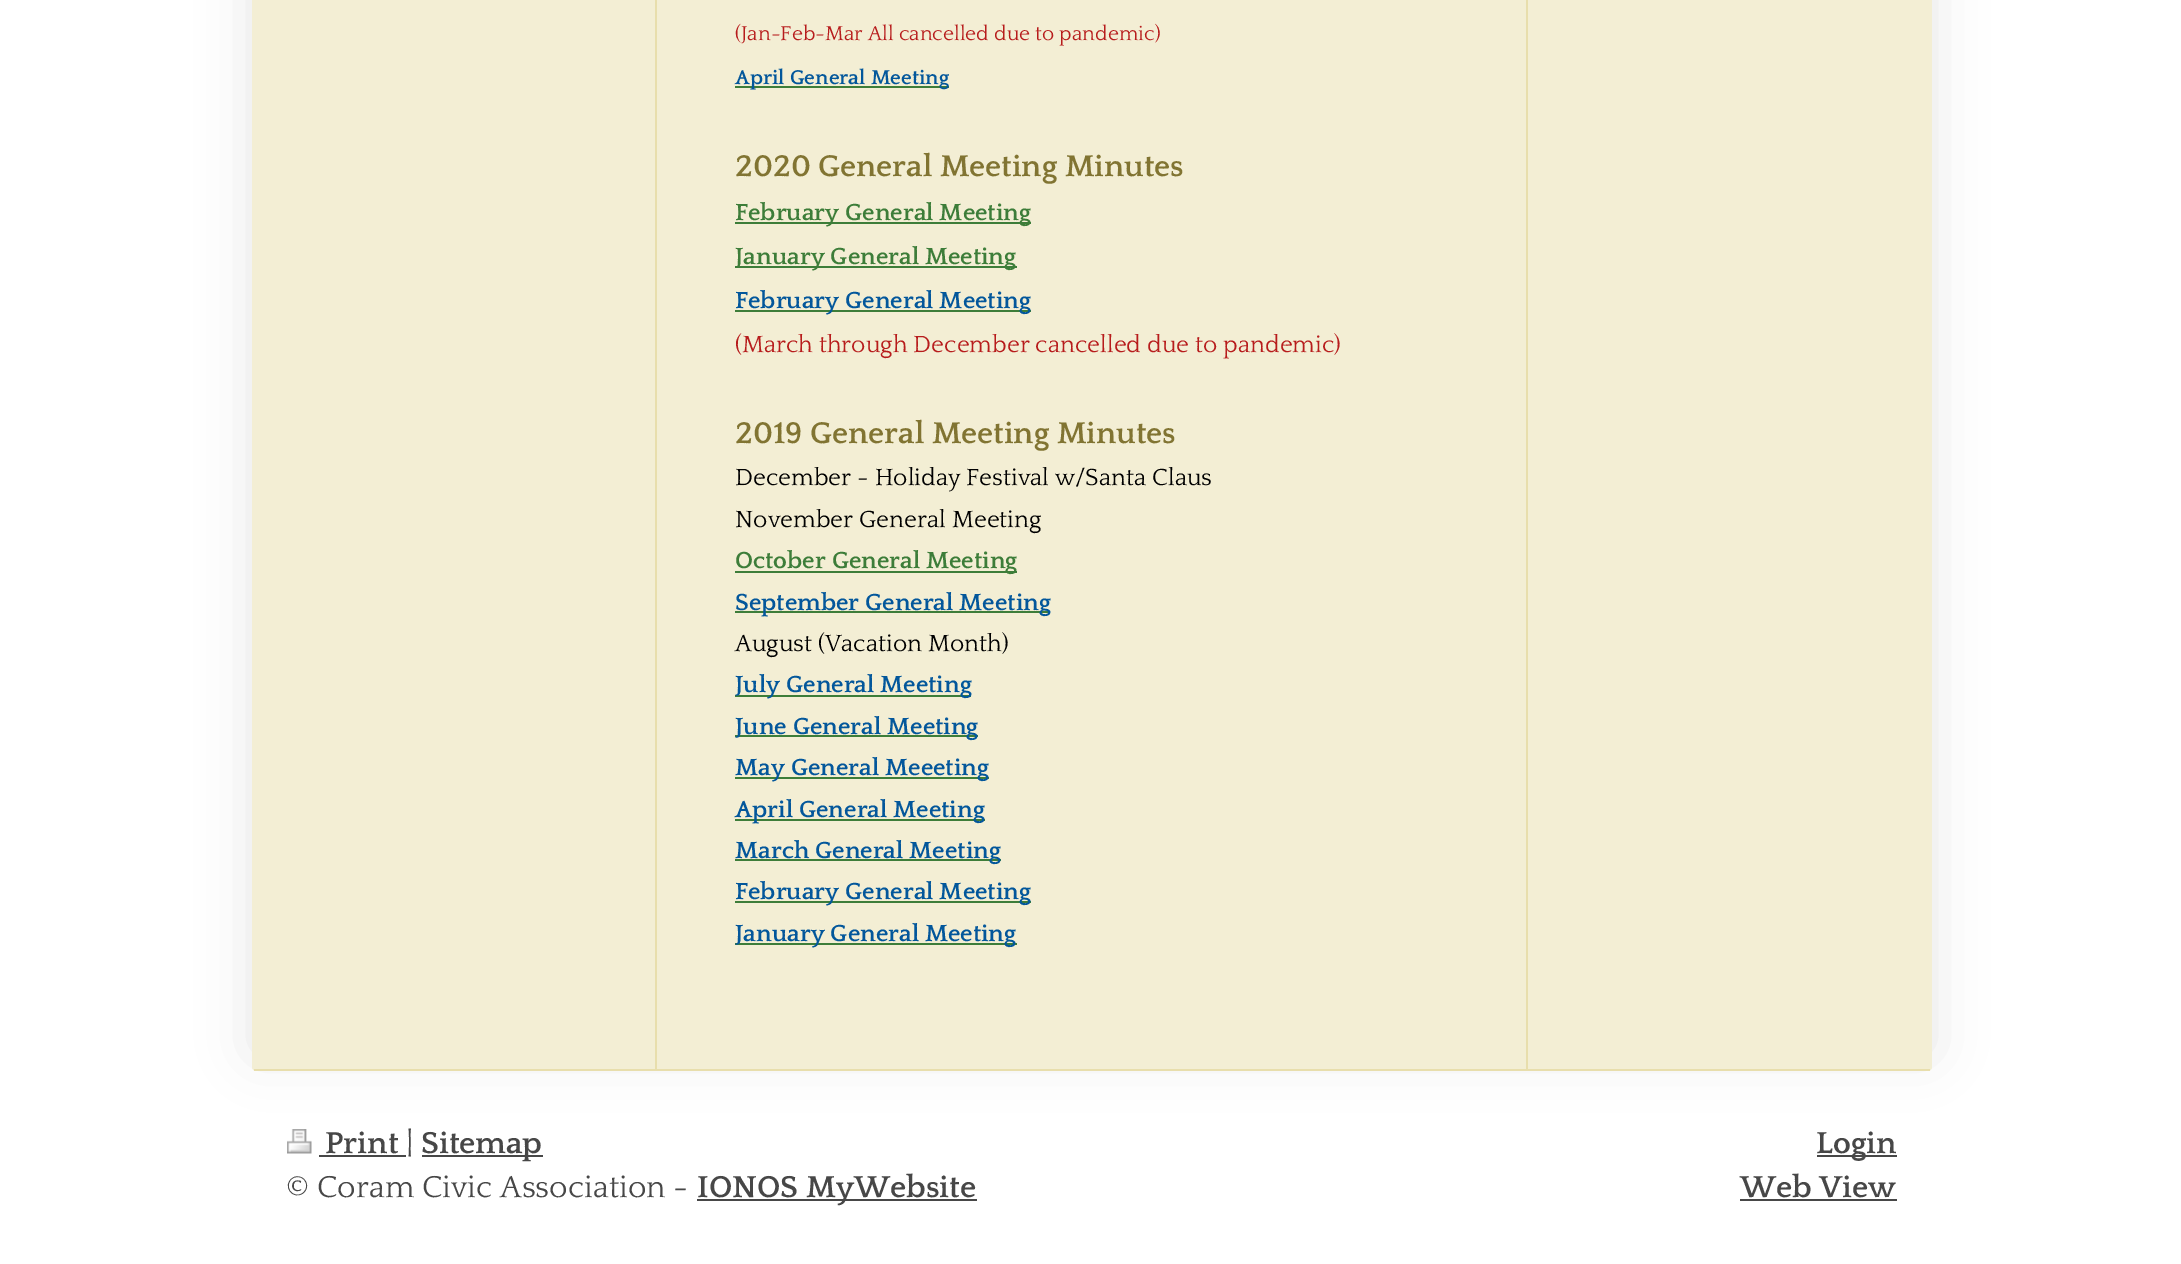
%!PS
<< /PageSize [2181 1264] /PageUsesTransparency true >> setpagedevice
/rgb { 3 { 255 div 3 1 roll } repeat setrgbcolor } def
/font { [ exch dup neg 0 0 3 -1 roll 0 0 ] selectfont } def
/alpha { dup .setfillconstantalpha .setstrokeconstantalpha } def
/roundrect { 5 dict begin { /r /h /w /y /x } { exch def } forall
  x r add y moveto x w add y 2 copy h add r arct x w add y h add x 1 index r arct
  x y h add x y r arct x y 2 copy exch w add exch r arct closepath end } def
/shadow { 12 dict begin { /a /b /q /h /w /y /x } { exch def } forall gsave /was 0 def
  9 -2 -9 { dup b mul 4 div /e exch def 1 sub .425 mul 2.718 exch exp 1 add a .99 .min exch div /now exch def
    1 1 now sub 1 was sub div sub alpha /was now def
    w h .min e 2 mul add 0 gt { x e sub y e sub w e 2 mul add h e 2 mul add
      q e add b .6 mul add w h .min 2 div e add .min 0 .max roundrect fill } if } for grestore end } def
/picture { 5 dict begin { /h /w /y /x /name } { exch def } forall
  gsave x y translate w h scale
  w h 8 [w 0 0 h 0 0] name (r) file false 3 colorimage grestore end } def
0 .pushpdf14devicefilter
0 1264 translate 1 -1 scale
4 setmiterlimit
255 255 255 rgb
0 0 2181 1264 rectfill
0 0 0 rgb
252 -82 1680 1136 4 26 0.1 shadow
243 238 212 rgb
252 -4 1680 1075 4 roundrect fill
[
  [254 1069 1676 2 232 222 172]
  [1526 0 2 1069 232 222 172]
  [655 0 2 1069 232 222 172]
  [735 86 214 2 61 125 57]
  [735 222 296 2 61 125 57]
  [735 266 282 2 61 125 57]
  [735 310 296 2 61 125 57]
  [735 571 282 2 61 125 57]
  [735 611 315 2 61 125 57]
  [735 695 236 2 61 125 57]
  [735 735 243 2 61 125 57]
  [735 777 254 2 61 125 57]
  [735 819 250 2 61 125 57]
  [735 859 266 2 61 125 57]
  [735 901 296 2 61 125 57]
  [735 943 282 2 61 125 57]
] { aload pop rgb rectfill } forall
(img/1.rgb) 287 1129 25 25 picture
[
  [319 1155 87 2 71 71 71]
  [422 1155 121 2 71 71 71]
  [697 1199 280 2 71 71 71]
  [1817 1155 80 2 71 71 71]
  [1740 1199 157 2 71 71 71]
] { aload pop rgb rectfill } forall
/Quattrocento-Regular 21 font
183 28 28 rgb
735 40 moveto (\(Jan-Feb-Mar All cancelled due to pandemic\)) show
/Quattrocento-Bold 21 font
3 87 155 rgb
735 84 moveto (April General Meeting) show
/Quattrocento-Bold 31.5 font
129 116 50 rgb
735 176 moveto (2020 General Meeting Minutes) show
/Quattrocento-Bold 24.5 font
61 125 57 rgb
735 220 moveto (February General Meeting) show
735 264 moveto (January General Meeting) show
3 87 155 rgb
735 308 moveto (February General Meeting) show
/Quattrocento-Regular 24.5 font
183 28 28 rgb
735 352 moveto (\(March through December cancelled due to pandemic\)) show
/Quattrocento-Bold 31.5 font
129 116 50 rgb
735 443 moveto (2019 General Meeting Minutes) show
/Quattrocento-Regular 24.5 font
0 0 0 rgb
735 485 moveto (December - Holiday Festival w/Santa Claus) show
735 527 moveto (November General Meeting) show
/Quattrocento-Bold 24.5 font
61 125 57 rgb
735 568 moveto (October General Meeting) show
3 87 155 rgb
735 610 moveto (September General Meeting) show
/Quattrocento-Regular 24.5 font
0 0 0 rgb
735 651 moveto (August \(Vacation Month\)) show
/Quattrocento-Bold 24.5 font
3 87 155 rgb
[
  [(July General Meeting) 735 692]
  [(June General Meeting) 735 734]
  [(May General Meeeting) 735 775]
  [(April General Meeting) 735 817]
  [(March General Meeting) 735 858]
  [(February General Meeting) 735 899]
  [(January General Meeting) 735 941]
] { aload pop moveto show } forall
/Quattrocento-Bold 31.8 font
71 71 71 rgb
325 1153 moveto (Print) show
/Quattrocento-Regular 31.8 font
406 1153 moveto (|) show
/Quattrocento-Bold 31.8 font
421 1153 moveto (Sitemap) show
/Quattrocento-Regular 31.8 font
286 1197 moveto (© Coram Civic Association -) show
/Quattrocento-Bold 31.8 font
[
  [(IONOS MyWebsite) 697 1197]
  [(Login) 1816 1153]
  [(Web View) 1740 1197]
] { aload pop moveto show } forall
.poppdf14devicefilter showpage
